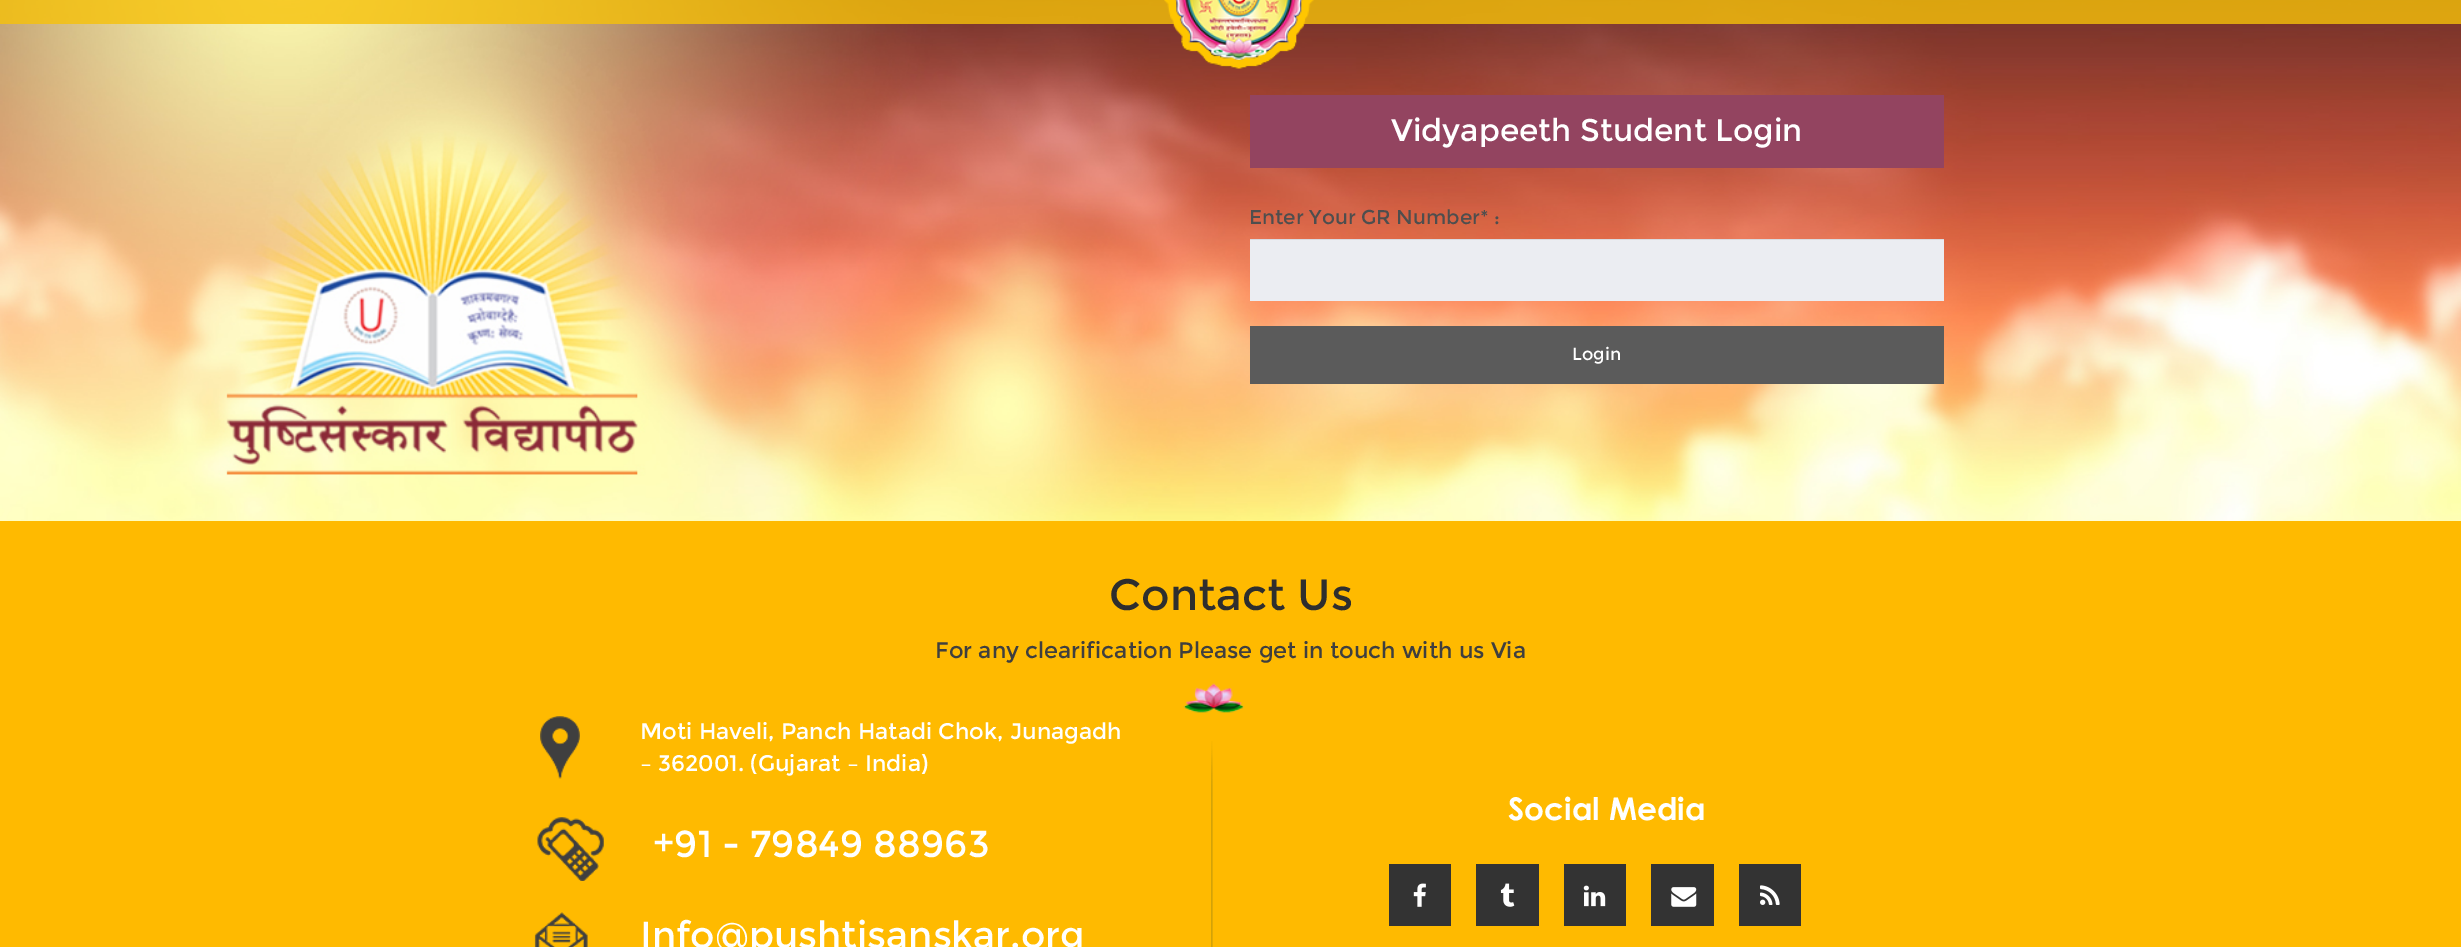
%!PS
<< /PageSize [2461 947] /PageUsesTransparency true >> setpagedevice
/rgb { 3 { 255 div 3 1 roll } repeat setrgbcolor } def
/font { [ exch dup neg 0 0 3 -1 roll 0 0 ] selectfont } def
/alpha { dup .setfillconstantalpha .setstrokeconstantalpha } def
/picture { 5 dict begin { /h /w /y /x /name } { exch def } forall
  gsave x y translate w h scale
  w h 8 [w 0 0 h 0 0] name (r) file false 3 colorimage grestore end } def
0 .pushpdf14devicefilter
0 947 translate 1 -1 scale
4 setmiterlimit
255 255 255 rgb
0 0 2461 947 rectfill
(img/1.rgb) 0 0 2461 521 picture
0.8 alpha
246 193 9 rgb
0 0 2461 24 rectfill
1 alpha
(img/2.rgb) 1164 0 150 69 picture
[
  [1250 95 694 73 147 68 96]
  [1250 240 694 61 235 237 242]
  [1250 239 694 1 217 219 224]
  [1250 326 694 58 91 91 91]
  [0 521 2461 426 255 186 0]
] { aload pop rgb rectfill } forall
(img/3.rgb) 1183 683 61 30 picture
(img/4.rgb) 1211 741 2 206 picture
(img/5.rgb) 540 716 40 63 picture
(img/6.rgb) 537 817 67 64 picture
(img/7.rgb) 534 912 54 35 picture
51 51 51 rgb
1389 864 62 62 rectfill
(img/8.rgb) 1413 883 13 24 picture
1476 864 63 62 rectfill
(img/9.rgb) 1500 883 15 24 picture
1564 864 62 62 rectfill
(img/10.rgb) 1583 885 23 22 picture
1651 864 63 62 rectfill
(img/11.rgb) 1671 887 26 20 picture
1739 864 62 62 rectfill
(img/12.rgb) 1760 885 20 20 picture
/Montserrat-Regular 31.25 font
255 255 255 rgb
1391 141 moveto (Vidyapeeth Student Login) show
/Montserrat-Regular 20 font
78 78 78 rgb
1249 224 moveto (Enter Your GR Number* :) show
/Montserrat-Regular 17.5 font
255 255 255 rgb
1572 360 moveto (Login) show
/Montserrat-Regular 43.75 font
46 46 46 rgb
1109 610 moveto (Contact Us) show
/Montserrat-Regular 22.5 font
63 63 63 rgb
935 658 moveto (For any clearification Please get in touch with us Via) show
255 255 255 rgb
640 739 moveto (Moti Haveli, Panch Hatadi Chok, Junagadh) show
640 771 moveto (– 362001. \(Gujarat – India\)) show
/Montserrat-Regular 37.5 font
653 857 moveto (+91 - 79849 88963) show
640 948 moveto (Info@pushtisanskar.org) show
/CenturyGothic-Bold 31.25 font
1508 820 moveto (Social Media) show
.poppdf14devicefilter showpage
